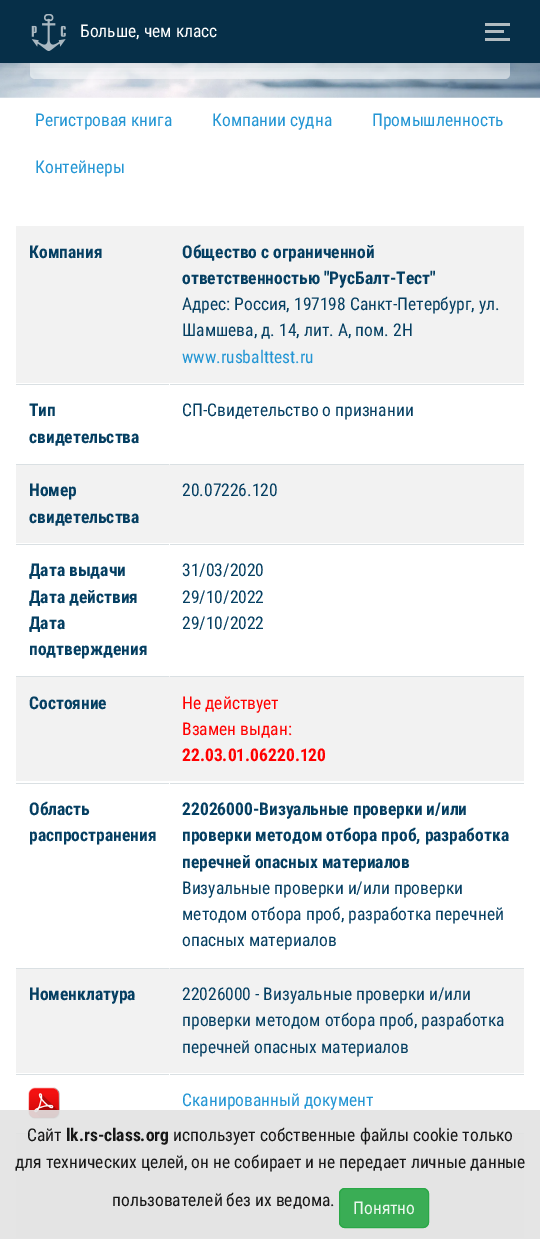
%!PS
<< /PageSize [540 1239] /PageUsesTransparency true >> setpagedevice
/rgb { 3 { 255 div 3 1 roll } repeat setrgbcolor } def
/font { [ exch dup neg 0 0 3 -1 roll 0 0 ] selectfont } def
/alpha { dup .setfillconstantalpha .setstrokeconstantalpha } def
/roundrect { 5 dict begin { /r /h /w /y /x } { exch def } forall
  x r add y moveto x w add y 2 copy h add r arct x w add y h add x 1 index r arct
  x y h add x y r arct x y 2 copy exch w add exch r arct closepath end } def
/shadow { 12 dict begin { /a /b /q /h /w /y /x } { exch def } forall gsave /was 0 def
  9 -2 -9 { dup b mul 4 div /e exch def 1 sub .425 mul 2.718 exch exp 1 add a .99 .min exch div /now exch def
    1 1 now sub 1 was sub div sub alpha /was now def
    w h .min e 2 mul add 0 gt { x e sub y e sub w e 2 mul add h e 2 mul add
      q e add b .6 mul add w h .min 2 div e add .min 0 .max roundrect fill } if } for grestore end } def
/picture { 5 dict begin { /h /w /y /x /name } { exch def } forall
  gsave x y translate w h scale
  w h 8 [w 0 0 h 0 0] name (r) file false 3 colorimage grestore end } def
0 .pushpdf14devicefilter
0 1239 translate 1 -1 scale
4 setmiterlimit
255 255 255 rgb
0 0 540 1239 rectfill
(img/1.rgb) 0 63 540 35 picture
0.55 alpha
30 -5 480 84 5 roundrect fill
1 alpha
17 49 63 rgb
0 4 540 62 0 7.5 0.15 shadow
6 47 72 rgb
0 0 540 63 rectfill
(img/2.rgb) 31 14 35 37 picture
[
  [485 23 25 3 177 188 193]
  [485 30 19 3 177 188 193]
  [485 38 25 3 177 188 193]
  [16 226 508 157 242 242 242]
  [16 384 153 1 218 224 227]
  [170 384 354 1 218 224 227]
  [16 464 508 79 242 242 242]
  [16 464 153 1 218 224 227]
  [170 464 354 1 218 224 227]
  [16 544 153 1 218 224 227]
  [170 544 354 1 218 224 227]
  [16 676 508 105 242 242 242]
  [16 676 153 1 218 224 227]
  [170 676 354 1 218 224 227]
  [16 783 153 1 218 224 227]
  [170 783 354 1 218 224 227]
  [16 968 508 105 242 242 242]
  [16 968 153 1 218 224 227]
  [170 968 354 1 218 224 227]
  [16 1074 153 1 218 224 227]
] { aload pop rgb rectfill } forall
(img/3.rgb) 28 1087 32 32 picture
[
  [170 1074 354 1 218 224 227]
  [16 1133 508 105 242 242 242]
  [16 1133 153 1 218 224 227]
  [170 1133 354 1 218 224 227]
] { aload pop rgb rectfill } forall
0.9 alpha
[
  [0 1110 540 129 226 226 226]
] { aload pop rgb rectfill } forall
40 167 69 rgb
339 1188 90 40 6 roundrect fill
339.5 1188.5 89 39 5.5 roundrect stroke
/RobotoCondensed-Regular 17.5 font
1 alpha
255 255 255 rgb
80 37 moveto (Больше, чем класс) show
36 150 212 rgb
[
  [(Регистровая книга) 35 126]
  [(Компании судна) 212 126]
  [(Промышленность) 372 126]
  [(Контейнеры) 35 173]
] { aload pop moveto show } forall
/RobotoCondensed-Bold 17.5 font
5 63 98 rgb
[
  [(Компания) 29 258]
  [(Общество с ограниченной) 182 258]
  [(ответственностью "РусБалт-Тест") 182 284]
] { aload pop moveto show } forall
/RobotoCondensed-Regular 17.5 font
182 310 moveto (Адрес: Россия, 197198 Санкт-Петербург, ул.) show
182 336 moveto (Шамшева, д. 14, лит. А, пом. 2Н) show
36 150 212 rgb
182 363 moveto (www.rusbalttest.ru) show
/RobotoCondensed-Bold 17.5 font
5 63 98 rgb
29 416 moveto (Тип) show
29 443 moveto (свидетельства) show
/RobotoCondensed-Regular 17.5 font
182 416 moveto (СП-Свидетельство о признании) show
/RobotoCondensed-Bold 17.5 font
29 496 moveto (Номер) show
29 523 moveto (свидетельства) show
/RobotoCondensed-Regular 17.5 font
182 496 moveto (20.07226.120) show
/RobotoCondensed-Bold 17.5 font
[
  [(Дата выдачи) 29 576]
  [(Дата действия) 29 603]
  [(Дата) 29 629]
  [(подтверждения) 29 655]
] { aload pop moveto show } forall
/RobotoCondensed-Regular 17.5 font
[
  [(31/03/2020) 182 576]
  [(29/10/2022) 182 603]
  [(29/10/2022) 182 629]
] { aload pop moveto show } forall
/RobotoCondensed-Bold 17.5 font
29 709 moveto (Состояние) show
/RobotoCondensed-Regular 17.5 font
255 0 0 rgb
182 709 moveto (Не действует) show
182 735 moveto (Взамен выдан:) show
/RobotoCondensed-Bold 17.5 font
182 761 moveto (22.03.01.06220.120) show
5 63 98 rgb
[
  [(Область) 29 815]
  [(распространения) 29 841]
  [(22026000-Визуальные проверки и/или) 182 815]
  [(проверки методом отбора проб, разработка) 182 841]
  [(перечней опасных материалов) 182 868]
] { aload pop moveto show } forall
/RobotoCondensed-Regular 17.5 font
[
  [(Визуальные проверки и/или проверки) 182 894]
  [(методом отбора проб, разработка перечней) 182 920]
  [(опасных материалов) 182 946]
] { aload pop moveto show } forall
/RobotoCondensed-Bold 17.5 font
29 1000 moveto (Номенклатура) show
/RobotoCondensed-Regular 17.5 font
[
  [(22026000 - Визуальные проверки и/или) 182 1000]
  [(проверки методом отбора проб, разработка) 182 1026]
  [(перечней опасных материалов) 182 1053]
] { aload pop moveto show } forall
36 150 212 rgb
182 1106 moveto (Сканированный документ) show
23 23 23 rgb
27 1141 moveto (Сайт) show
/RobotoCondensed-Bold 17.5 font
66 1141 moveto (lk.rs-class.org) show
/RobotoCondensed-Regular 17.5 font
[
  [(использует собственные файлы cookie только) 173 1141]
  [(для технических целей, он не собирает и не передает личные данные) 15 1168]
  [(пользователей без их ведома.) 112 1206]
] { aload pop moveto show } forall
235 247 238 rgb
353 1214 moveto (Понятно) show
.poppdf14devicefilter showpage
